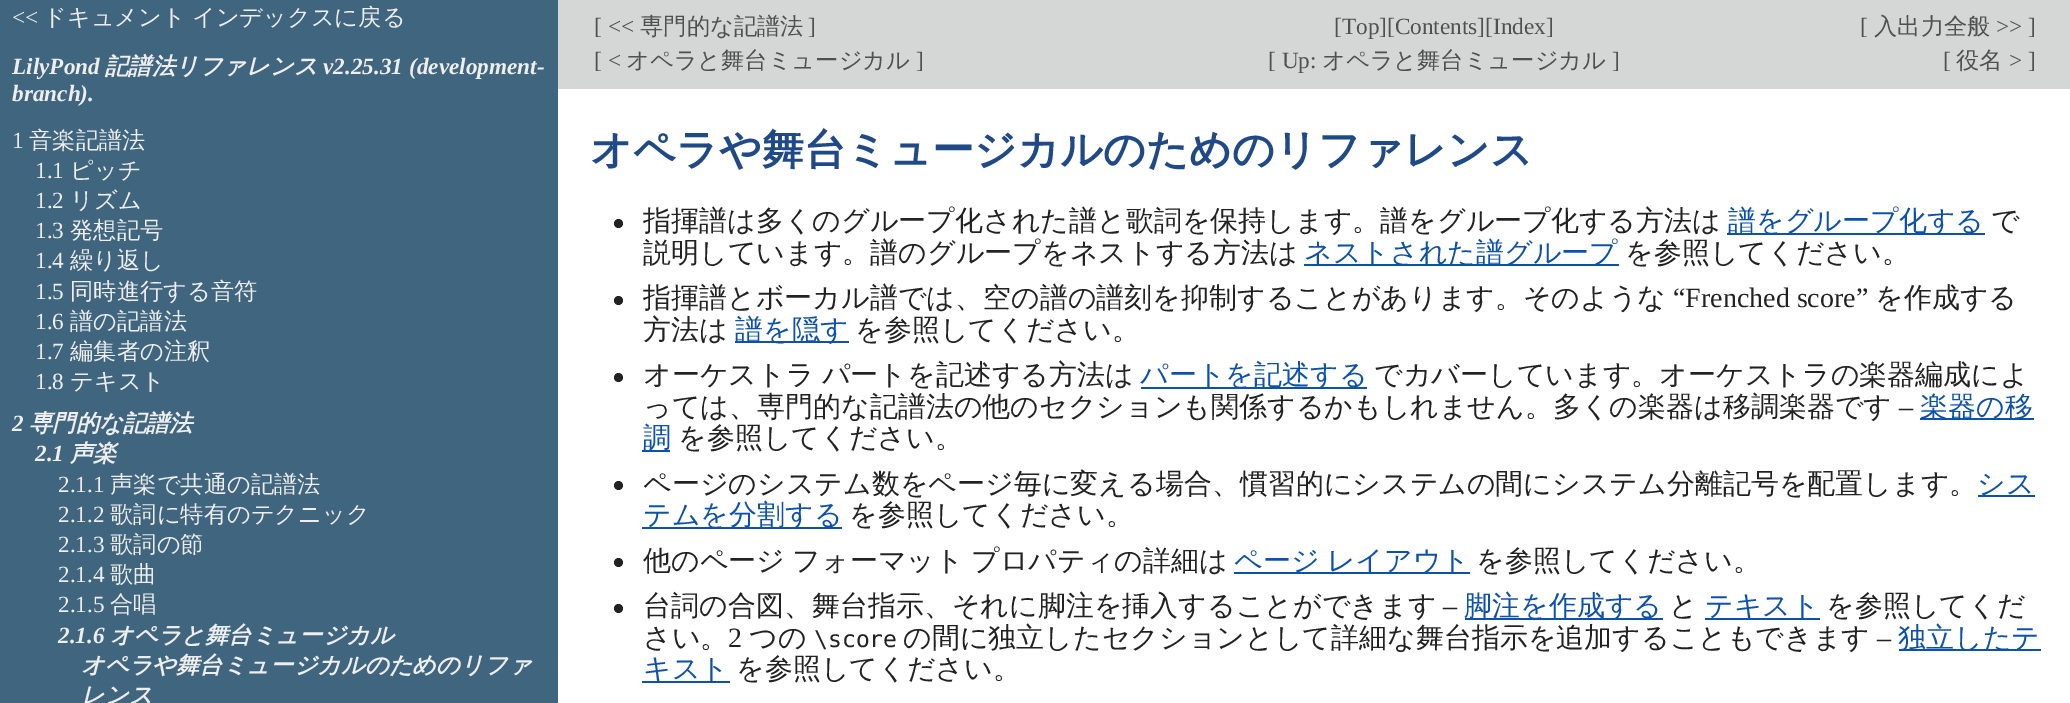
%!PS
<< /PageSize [2070 703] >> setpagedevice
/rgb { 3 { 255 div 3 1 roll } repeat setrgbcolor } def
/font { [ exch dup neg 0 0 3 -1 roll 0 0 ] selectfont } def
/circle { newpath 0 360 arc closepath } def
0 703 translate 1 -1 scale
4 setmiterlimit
255 255 255 rgb
0 0 2070 703 rectfill
64 101 127 rgb
0 0 558 703 rectfill
213 215 214 rgb
558 0 1512 89 rectfill
34 34 34 rgb
618.5 223.5 4.5 circle fill
12 81 171 rgb
1727 233 258 2 rectfill
1304 264 315 2 rectfill
34 34 34 rgb
618.5 300.5 4.5 circle fill
12 81 171 rgb
735 341 114 2 rectfill
34 34 34 rgb
618.5 377.5 4.5 circle fill
[
  [1141 387 226 2 12 81 171]
  [1920 418 114 2 12 81 171]
  [642 450 28 2 12 81 171]
] { aload pop rgb rectfill } forall
34 34 34 rgb
618.5 485.5 4.5 circle fill
12 81 171 rgb
1978 495 57 2 rectfill
642 527 200 2 rectfill
34 34 34 rgb
618.5 562.5 4.5 circle fill
12 81 171 rgb
1234 572 236 2 rectfill
34 34 34 rgb
618.5 608.5 4.5 circle fill
[
  [1465 618 198 2 12 81 171]
  [1705 618 115 2 12 81 171]
  [1899 649 142 2 12 81 171]
  [642 681 88 2 12 81 171]
] { aload pop rgb rectfill } forall
/LiberationSerif-Regular 23.25 font
238 238 238 rgb
12 25 moveto (<<) show
/WenQuanYiZenHei-Medium 23.25 font
43 25 moveto -1 0 32 (ドキュメント インデックスに戻る) widthshow
/LiberationSerif-BoldItalic 23.25 font
12 74 moveto (LilyPond) show
/WenQuanYiZenHei-BoldItalic 23.25 font
105 74 moveto (記譜法リファレンス) show
/LiberationSerif-BoldItalic 23.25 font
323 74 moveto (v2.25.31 \(development-) show
12 101 moveto (branch\).) show
/LiberationSerif-Regular 23.25 font
12 148 moveto (1) show
/WenQuanYiZenHei-Medium 23.25 font
29 148 moveto (音楽記譜法) show
/LiberationSerif-Regular 23.25 font
35 178 moveto (1.1) show
/WenQuanYiZenHei-Medium 23.25 font
70 178 moveto (ピッチ) show
/LiberationSerif-Regular 23.25 font
35 208 moveto (1.2) show
/WenQuanYiZenHei-Medium 23.25 font
70 208 moveto (リズム) show
/LiberationSerif-Regular 23.25 font
35 238 moveto (1.3) show
/WenQuanYiZenHei-Medium 23.25 font
70 238 moveto (発想記号) show
/LiberationSerif-Regular 23.25 font
35 268 moveto (1.4) show
/WenQuanYiZenHei-Medium 23.25 font
70 268 moveto (繰り返し) show
/LiberationSerif-Regular 23.25 font
35 299 moveto (1.5) show
/WenQuanYiZenHei-Medium 23.25 font
70 299 moveto (同時進行する音符) show
/LiberationSerif-Regular 23.25 font
35 329 moveto (1.6) show
/WenQuanYiZenHei-Medium 23.25 font
70 329 moveto (譜の記譜法) show
/LiberationSerif-Regular 23.25 font
35 359 moveto (1.7) show
/WenQuanYiZenHei-Medium 23.25 font
70 359 moveto (編集者の注釈) show
/LiberationSerif-Regular 23.25 font
35 389 moveto (1.8) show
/WenQuanYiZenHei-Medium 23.25 font
70 389 moveto (テキスト) show
/LiberationSerif-BoldItalic 23.25 font
12 431 moveto (2) show
/WenQuanYiZenHei-BoldItalic 23.25 font
29 431 moveto (専門的な記譜法) show
/LiberationSerif-BoldItalic 23.25 font
35 461 moveto (2.1) show
/WenQuanYiZenHei-BoldItalic 23.25 font
70 461 moveto (声楽) show
/LiberationSerif-Regular 23.25 font
58 492 moveto (2.1.1) show
/WenQuanYiZenHei-Medium 23.25 font
110 492 moveto (声楽で共通の記譜法) show
/LiberationSerif-Regular 23.25 font
58 522 moveto (2.1.2) show
/WenQuanYiZenHei-Medium 23.25 font
110 522 moveto (歌詞に特有のテクニック) show
/LiberationSerif-Regular 23.25 font
58 552 moveto (2.1.3) show
/WenQuanYiZenHei-Medium 23.25 font
110 552 moveto (歌詞の節) show
/LiberationSerif-Regular 23.25 font
58 582 moveto (2.1.4) show
/WenQuanYiZenHei-Medium 23.25 font
110 582 moveto (歌曲) show
/LiberationSerif-Regular 23.25 font
58 612 moveto (2.1.5) show
/WenQuanYiZenHei-Medium 23.25 font
110 612 moveto (合唱) show
/LiberationSerif-BoldItalic 23.25 font
58 643 moveto (2.1.6) show
/WenQuanYiZenHei-BoldItalic 23.25 font
[
  [(オペラと舞台ミュージカル) 110 643]
  [(オペラや舞台ミュージカルのためのリファ) 81 673]
  [(レンス) 81 703]
] { aload pop moveto show } forall
/LiberationSerif-Regular 23.25 font
80 80 80 rgb
594 34 moveto ([ <<) show
/WenQuanYiZenHei-Medium 23.25 font
640 34 moveto (専門的な記譜法) show
/LiberationSerif-Regular 23.25 font
[
  [(]) 808 34]
  [([Top][Contents][Index]) 1334 34]
  [([) 1860 34]
] { aload pop moveto show } forall
/WenQuanYiZenHei-Medium 23.25 font
1874 34 moveto (入出力全般) show
/LiberationSerif-Regular 23.25 font
1996 34 moveto (>> ]) show
594 68 moveto ([ <) show
/WenQuanYiZenHei-Medium 23.25 font
626 68 moveto (オペラと舞台ミュージカル) show
/LiberationSerif-Regular 23.25 font
916 68 moveto (]) show
1268 68 moveto ([ Up:) show
/WenQuanYiZenHei-Medium 23.25 font
1322 68 moveto (オペラと舞台ミュージカル) show
/LiberationSerif-Regular 23.25 font
1612 68 moveto (]) show
1943 68 moveto ([) show
/WenQuanYiZenHei-Medium 23.25 font
1956 68 moveto (役名) show
/LiberationSerif-Regular 23.25 font
2009 68 moveto (> ]) show
/WenQuanYiZenHei-Bold 42 font
32 74 135 rgb
590 164 moveto (オペラや舞台ミュージカルのためのリファレンス) show
/WenQuanYiZenHei-Medium 28 font
34 34 34 rgb
643 230 moveto (指揮譜は多くのグループ化された譜と歌詞を保持します。譜をグループ化する方法は) show
12 81 171 rgb
1728 230 moveto (譜をグループ化する) show
34 34 34 rgb
1991 230 moveto (で) show
643 262 moveto (説明しています。譜のグループをネストする方法は) show
12 81 171 rgb
1304 262 moveto (ネストされた譜グループ) show
34 34 34 rgb
1625 262 moveto (を参照してください。) show
643 307 moveto (指揮譜とボーカル譜では、空の譜の譜刻を抑制することがあります。そのような) show
/LiberationSerif-Regular 28 font
1673 307 moveto (“Frenched score”) show
/WenQuanYiZenHei-Medium 28 font
1875 307 moveto (を作成する) show
643 339 moveto (方法は) show
12 81 171 rgb
735 339 moveto (譜を隠す) show
34 34 34 rgb
855 339 moveto (を参照してください。) show
643 384 moveto -1 0 32 (オーケストラ パートを記述する方法は) widthshow
12 81 171 rgb
1140 384 moveto (パートを記述する) show
34 34 34 rgb
1374 384 moveto (でカバーしています。オーケストラの楽器編成によ) show
643 416 moveto (っては、専門的な記譜法の他のセクションも関係するかもしれません。多くの楽器は移調楽器です) show
/LiberationSerif-Regular 28 font
1899 416 moveto (–) show
/WenQuanYiZenHei-Medium 28 font
12 81 171 rgb
1920 416 moveto (楽器の移) show
643 447 moveto (調) show
34 34 34 rgb
678 447 moveto (を参照してください。) show
643 493 moveto (ページのシステム数をページ毎に変える場合、慣習的にシステムの間にシステム分離記号を配置します。) show
12 81 171 rgb
1977 493 moveto (シス) show
643 524 moveto (テムを分割する) show
34 34 34 rgb
849 524 moveto (を参照してください。) show
643 570 moveto -1 0 32 (他のページ フォーマット プロパティの詳細は) widthshow
12 81 171 rgb
1234 570 moveto -1 0 32 (ページ レイアウト) widthshow
34 34 34 rgb
1476 570 moveto (を参照してください。) show
643 615 moveto (台詞の合図、舞台指示、それに脚注を挿入することができます) show
/LiberationSerif-Regular 28 font
1443 615 moveto (–) show
/WenQuanYiZenHei-Medium 28 font
12 81 171 rgb
1464 615 moveto (脚注を作成する) show
34 34 34 rgb
1669 615 moveto (と) show
12 81 171 rgb
1705 615 moveto (テキスト) show
34 34 34 rgb
1826 615 moveto (を参照してくだ) show
643 647 moveto (さい。) show
/LiberationSerif-Regular 28 font
728 647 moveto (2) show
/WenQuanYiZenHei-Medium 28 font
749 647 moveto (つの) show
/DejaVuSansMono-Regular 23 font
814 647 moveto (\\score) show
/WenQuanYiZenHei-Medium 28 font
903 647 moveto (の間に独立したセクションとして詳細な舞台指示を追加することもできます) show
/LiberationSerif-Regular 28 font
1877 647 moveto (–) show
/WenQuanYiZenHei-Medium 28 font
12 81 171 rgb
1898 647 moveto (独立したテ) show
643 678 moveto (キスト) show
34 34 34 rgb
736 678 moveto (を参照してください。) show
showpage
